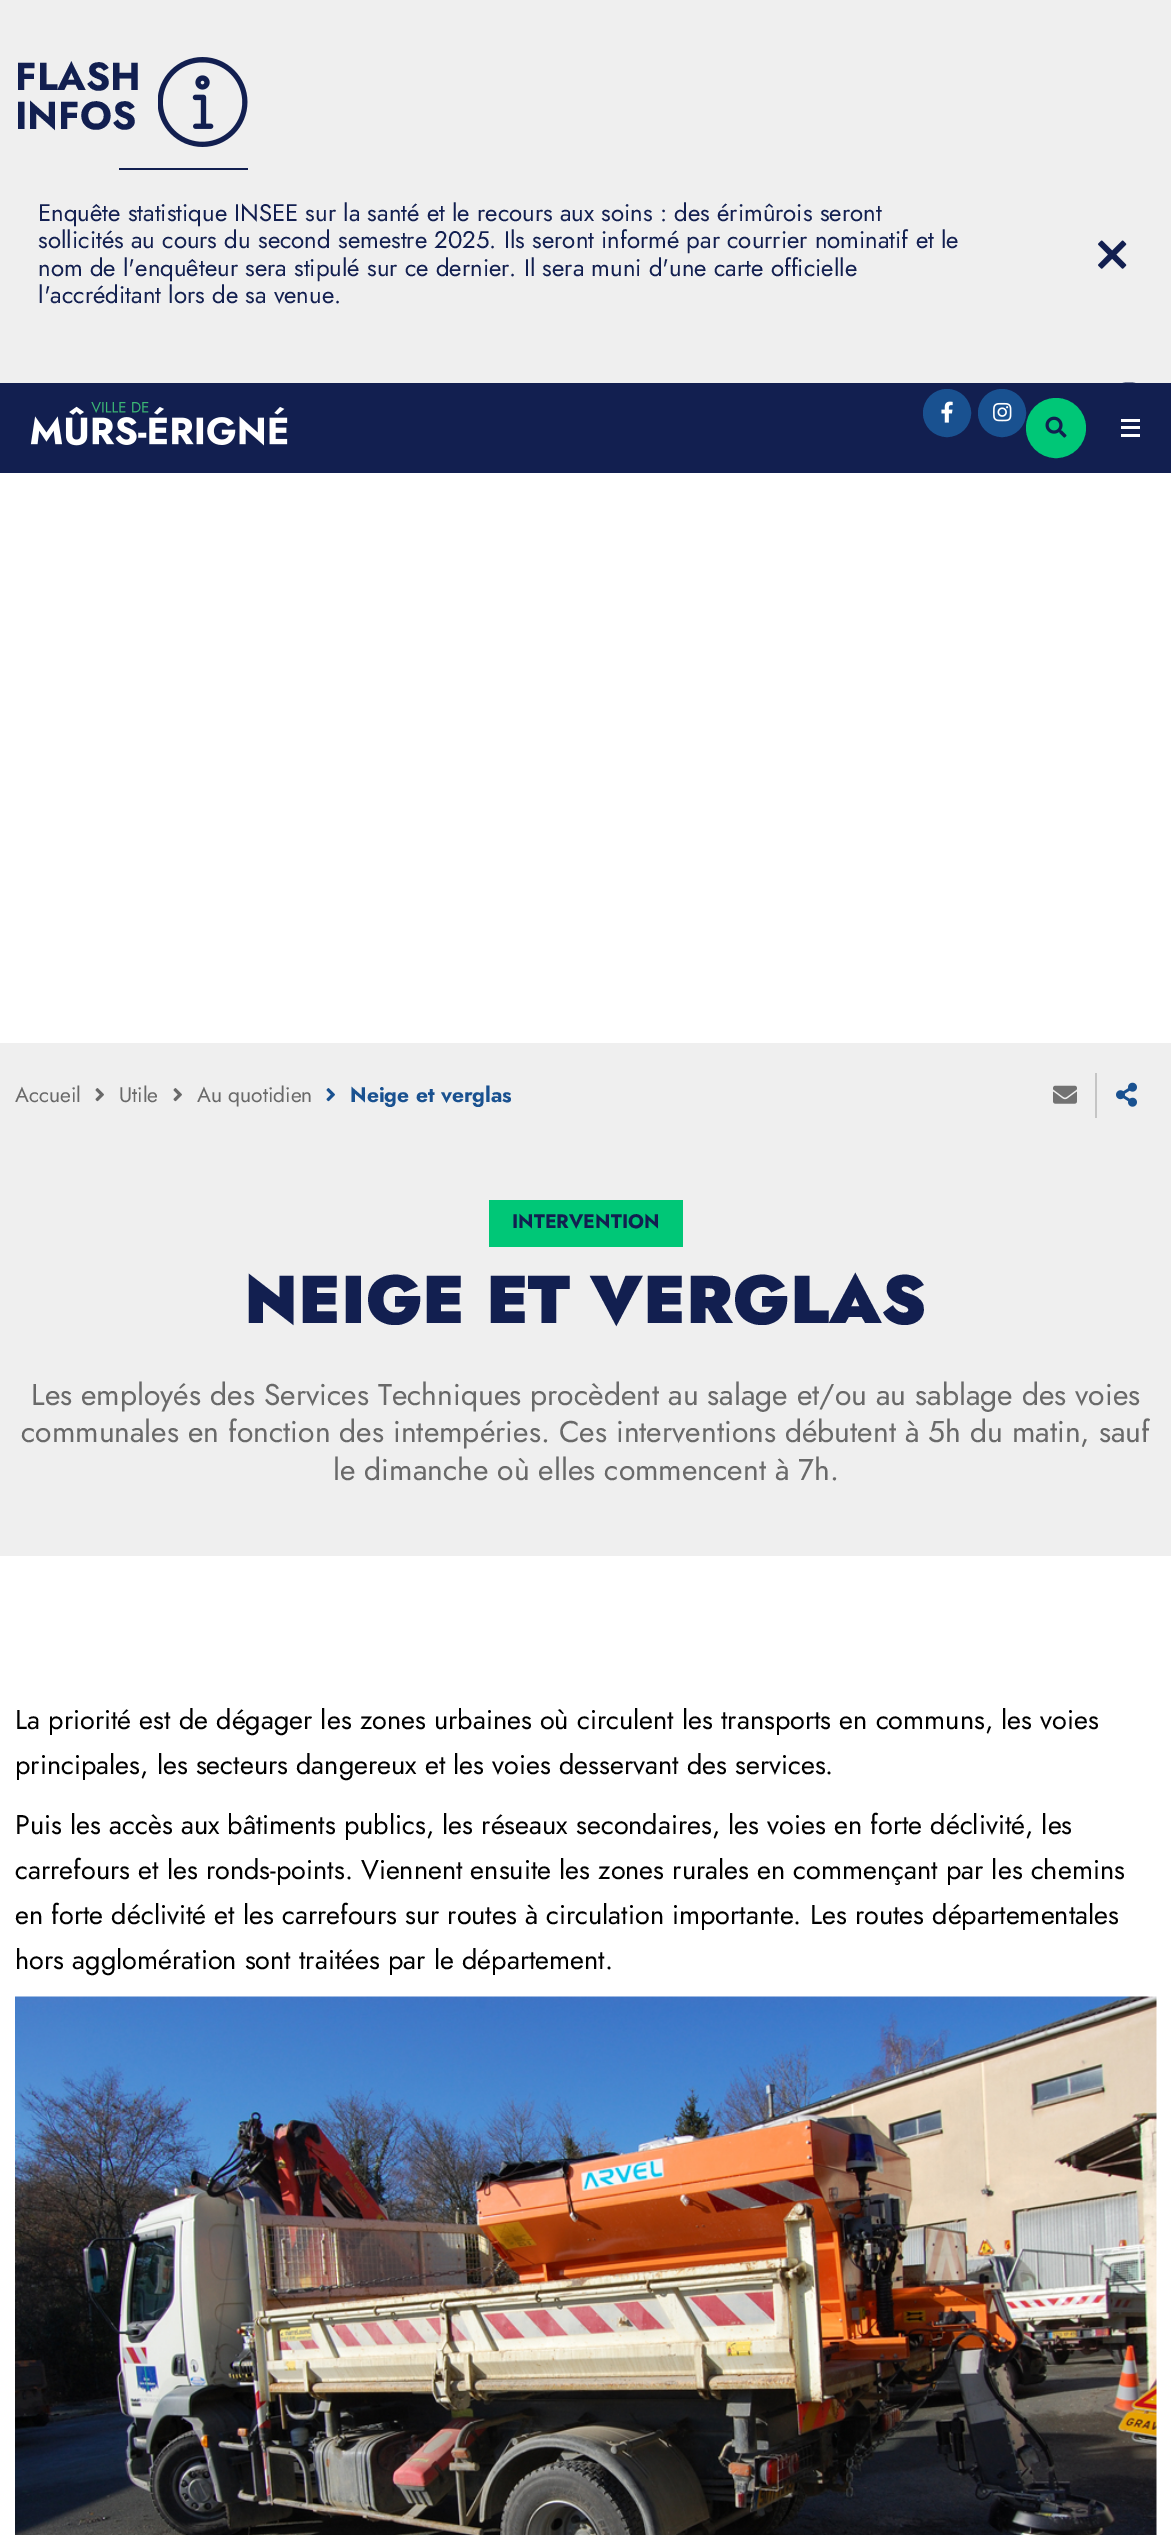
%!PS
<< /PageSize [1171 2535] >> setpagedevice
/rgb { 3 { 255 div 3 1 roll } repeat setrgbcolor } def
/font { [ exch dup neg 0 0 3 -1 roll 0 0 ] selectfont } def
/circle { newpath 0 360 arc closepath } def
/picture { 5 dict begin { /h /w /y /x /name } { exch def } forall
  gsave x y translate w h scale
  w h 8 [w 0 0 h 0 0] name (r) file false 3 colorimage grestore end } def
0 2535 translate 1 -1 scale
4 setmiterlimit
255 255 255 rgb
0 0 1171 2535 rectfill
239 239 239 rgb
0 0 1171 383 rectfill
(img/1.rgb) 158 57 90 90 picture
18 31 80 rgb
119 168 129 2 rectfill
(img/2.rgb) 1098 240 29 29 picture
0 383 1171 90 rectfill
(img/3.rgb) 30 402 258 44 picture
25 81 144 rgb
947 413 23 circle gsave fill grestore
2 setlinewidth
stroke
(img/4.rgb) 941 401 12 22 picture
1002 413 23 circle gsave fill grestore
stroke
(img/5.rgb) 993 402 19 20 picture
0 199 119 rgb
1056 428 29 circle gsave fill grestore
stroke
(img/6.rgb) 1045 416 22 22 picture
18 31 80 rgb
1129 382.5 moveto 1152.5 382.5 1172 402.5 1172 427.5 curveto 1172 452.5 1152.5 472.5 1129 472.5 curveto 1105.5 472.5 1086 452.5 1086 427.5 curveto 1086 402.5 1105.5 382.5 1129 382.5 curveto closepath fill
[
  [1121 419 19 3 255 255 255]
  [1121 426 19 3 255 255 255]
  [1121 434 19 3 255 255 255]
  [0 1043 1171 513 239 239 239]
] { aload pop rgb rectfill } forall
(img/7.rgb) 95 1088 9 14 picture
(img/7.rgb) 173 1088 9 14 picture
(img/8.rgb) 326 1088 9 14 picture
(img/9.rgb) 1053 1085 24 19 picture
197 197 197 rgb
1095 1073 2 45 rectfill
(img/10.rgb) 1116 1082 21 25 picture
0 199 119 rgb
489 1200 194 47 rectfill
(img/11.rgb) 15 1996 1142 539 picture
/Jost-Bold 39 font
18 31 80 rgb
15 90 moveto (FLASH) show
15 129 moveto (INFOS) show
/Jost-Regular 24 font
[
  [(Enquête statistique INSEE sur la santé et le recours aux soins : des érimûrois seront) 38 221]
  [(sollicités au cours du second semestre 2025. Ils seront informé par courrier nominatif et le) 38 248]
  [(nom de l'enquêteur sera stipulé sur ce dernier. Il sera muni d'une carte officielle) 38 276]
  [(l'accréditant lors de sa venue.) 38 303]
] { aload pop moveto show } forall
/Jost-Regular 21 font
105 105 105 rgb
[
  [(Accueil) 15 1102]
  [(Utile) 119 1102]
  [(Au quotidien) 197 1102]
] { aload pop moveto show } forall
/Jost-Bold 21 font
25 81 144 rgb
350 1102 moveto (Neige et verglas) show
/Jost-Bold 19.5 font
18 31 80 rgb
512 1228 moveto (INTERVENTION) show
/Jost-Black 67.5 font
244 1323 moveto (NEIGE ET VERGLAS) show
/Jost-Regular 30 font
105 105 105 rgb
[
  [(Les employés des Services Techniques procèdent au salage et/ou au sablage des voies) 31 1405]
  [(communales en fonction des intempéries. Ces interventions débutent à 5h du matin, sauf) 21 1442]
  [(le dimanche où elles commencent à 7h.) 333 1480]
] { aload pop moveto show } forall
/Jost-Regular 27 font
0 0 0 rgb
[
  [(La priorité est de dégager les zones urbaines où circulent les transports en communs, les voies) 15 1729]
  [(principales, les secteurs dangereux et les voies desservant des services.) 15 1774]
  [(Puis les accès aux bâtiments publics, les réseaux secondaires, les voies en forte déclivité, les) 15 1834]
  [(carrefours et les ronds-points. Viennent ensuite les zones rurales en commençant par les chemins) 15 1879]
  [(en forte déclivité et les carrefours sur routes à circulation importante. Les routes départementales) 15 1924]
  [(hors agglomération sont traitées par le département.) 15 1969]
] { aload pop moveto show } forall
showpage
